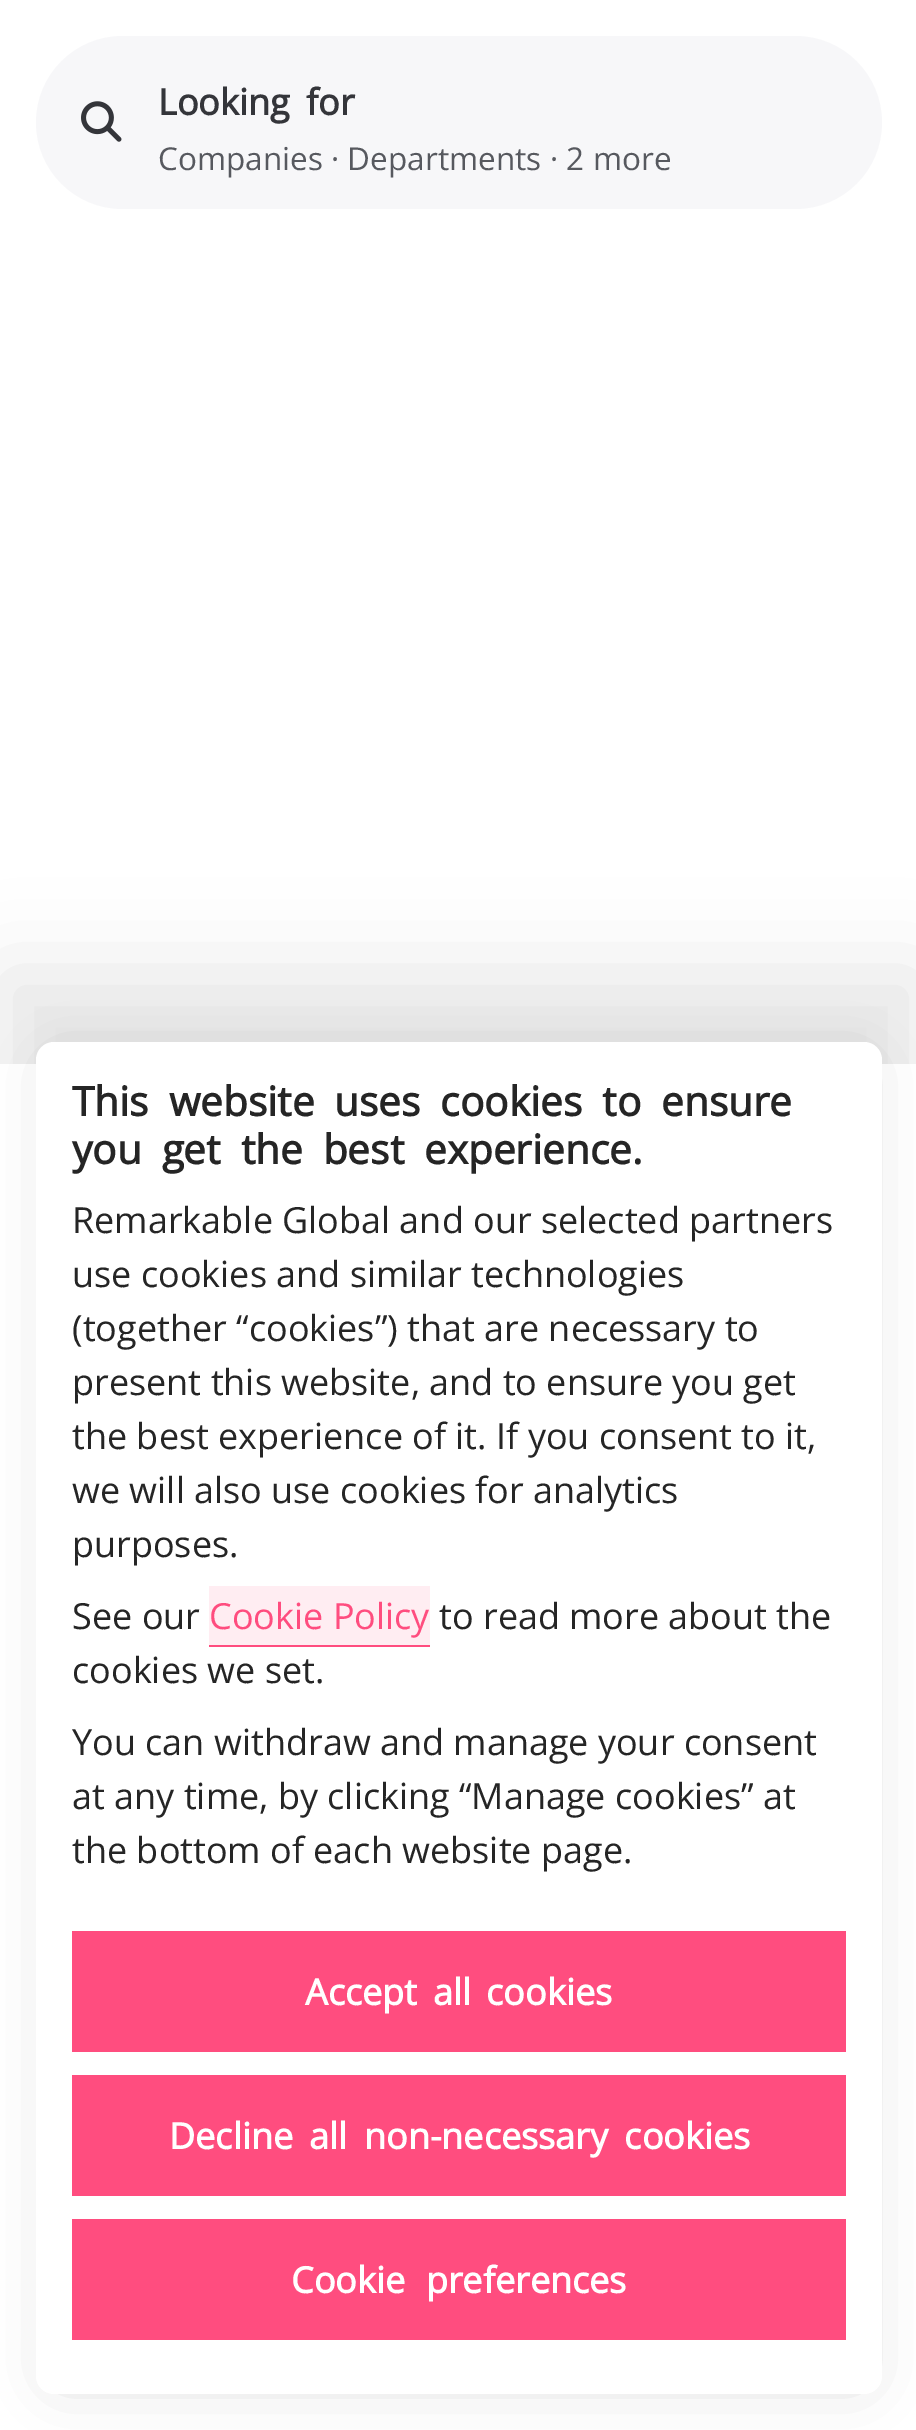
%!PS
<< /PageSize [916 2430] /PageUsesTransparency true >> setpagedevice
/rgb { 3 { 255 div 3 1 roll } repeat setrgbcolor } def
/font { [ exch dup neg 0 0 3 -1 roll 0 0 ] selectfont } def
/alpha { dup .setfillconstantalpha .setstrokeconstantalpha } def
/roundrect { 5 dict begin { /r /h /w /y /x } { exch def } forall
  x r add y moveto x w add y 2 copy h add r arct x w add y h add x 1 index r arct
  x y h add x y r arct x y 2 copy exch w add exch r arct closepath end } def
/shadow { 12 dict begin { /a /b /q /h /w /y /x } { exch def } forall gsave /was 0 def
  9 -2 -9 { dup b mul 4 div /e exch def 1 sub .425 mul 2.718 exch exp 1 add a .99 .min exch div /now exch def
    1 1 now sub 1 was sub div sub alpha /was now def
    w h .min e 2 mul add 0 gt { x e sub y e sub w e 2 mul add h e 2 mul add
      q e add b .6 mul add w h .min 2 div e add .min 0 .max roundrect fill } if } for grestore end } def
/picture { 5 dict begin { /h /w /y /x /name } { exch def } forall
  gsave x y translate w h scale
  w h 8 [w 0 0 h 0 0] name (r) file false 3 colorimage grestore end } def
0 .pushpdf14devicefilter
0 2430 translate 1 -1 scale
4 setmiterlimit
255 255 255 rgb
0 0 916 2430 rectfill
247 247 249 rgb
36 36 846 173 86.5 roundrect fill
(img/1.rgb) 81 101 41 41 picture
0 0 0 rgb
2 974 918 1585 0 43 0.1 shadow
255 255 255 rgb
0 1064 916 1366 rectfill
0 0 0 rgb
59 1069 801 1307 0 30.5 0.18 shadow
255 255 255 rgb
36 1042 846 1352 18 roundrect fill
[
  [209 1586 221 59 255 237 242]
  [209 1645 221 2 255 77 127]
  [72 1931 774 121 255 77 127]
  [72 2075 774 121 255 77 127]
  [72 2219 774 121 255 77 127]
] { aload pop rgb rectfill } forall
/OpenSans-Bold 36 font
52 53 58 rgb
158 115 moveto 7 0 32 (Looking for) widthshow
/OpenSans-Regular 31.5 font
87 89 95 rgb
158 170 moveto (Companies · Departments) show
550 170 moveto (· 2 more) show
/OpenSans-Bold 40.5 font
37 37 37 rgb
72 1116 moveto 9.5 0 32 (This website uses cookies to ensure) widthshow
72 1164 moveto 9.5 0 32 (you get the best experience.) widthshow
/OpenSans-Regular 36 font
[
  [(Remarkable Global and our selected partners) 72 1233]
  [(use cookies and similar technologies) 72 1287]
  [(\(together “cookies”\) that are necessary to) 72 1341]
  [(present this website, and to ensure you get) 72 1395]
  [(the best experience of it. If you consent to it,) 72 1449]
  [(we will also use cookies for analytics) 72 1503]
  [(purposes.) 72 1557]
  [(See our) 72 1629]
] { aload pop moveto show } forall
255 77 127 rgb
209 1629 moveto (Cookie Policy) show
37 37 37 rgb
[
  [(to read more about the) 439 1629]
  [(cookies we set.) 72 1683]
  [(You can withdraw and manage your consent) 72 1755]
  [(at any time, by clicking “Manage cookies” at) 72 1809]
  [(the bottom of each website page.) 72 1863]
] { aload pop moveto show } forall
/OpenSans-Bold 36 font
255 255 255 rgb
305 2005 moveto 6 0 32 (Accept all cookies) widthshow
169 2149 moveto 7 0 32 (Decline all non-necessary cookies) widthshow
291 2293 moveto 11 0 32 (Cookie preferences) widthshow
.poppdf14devicefilter showpage
